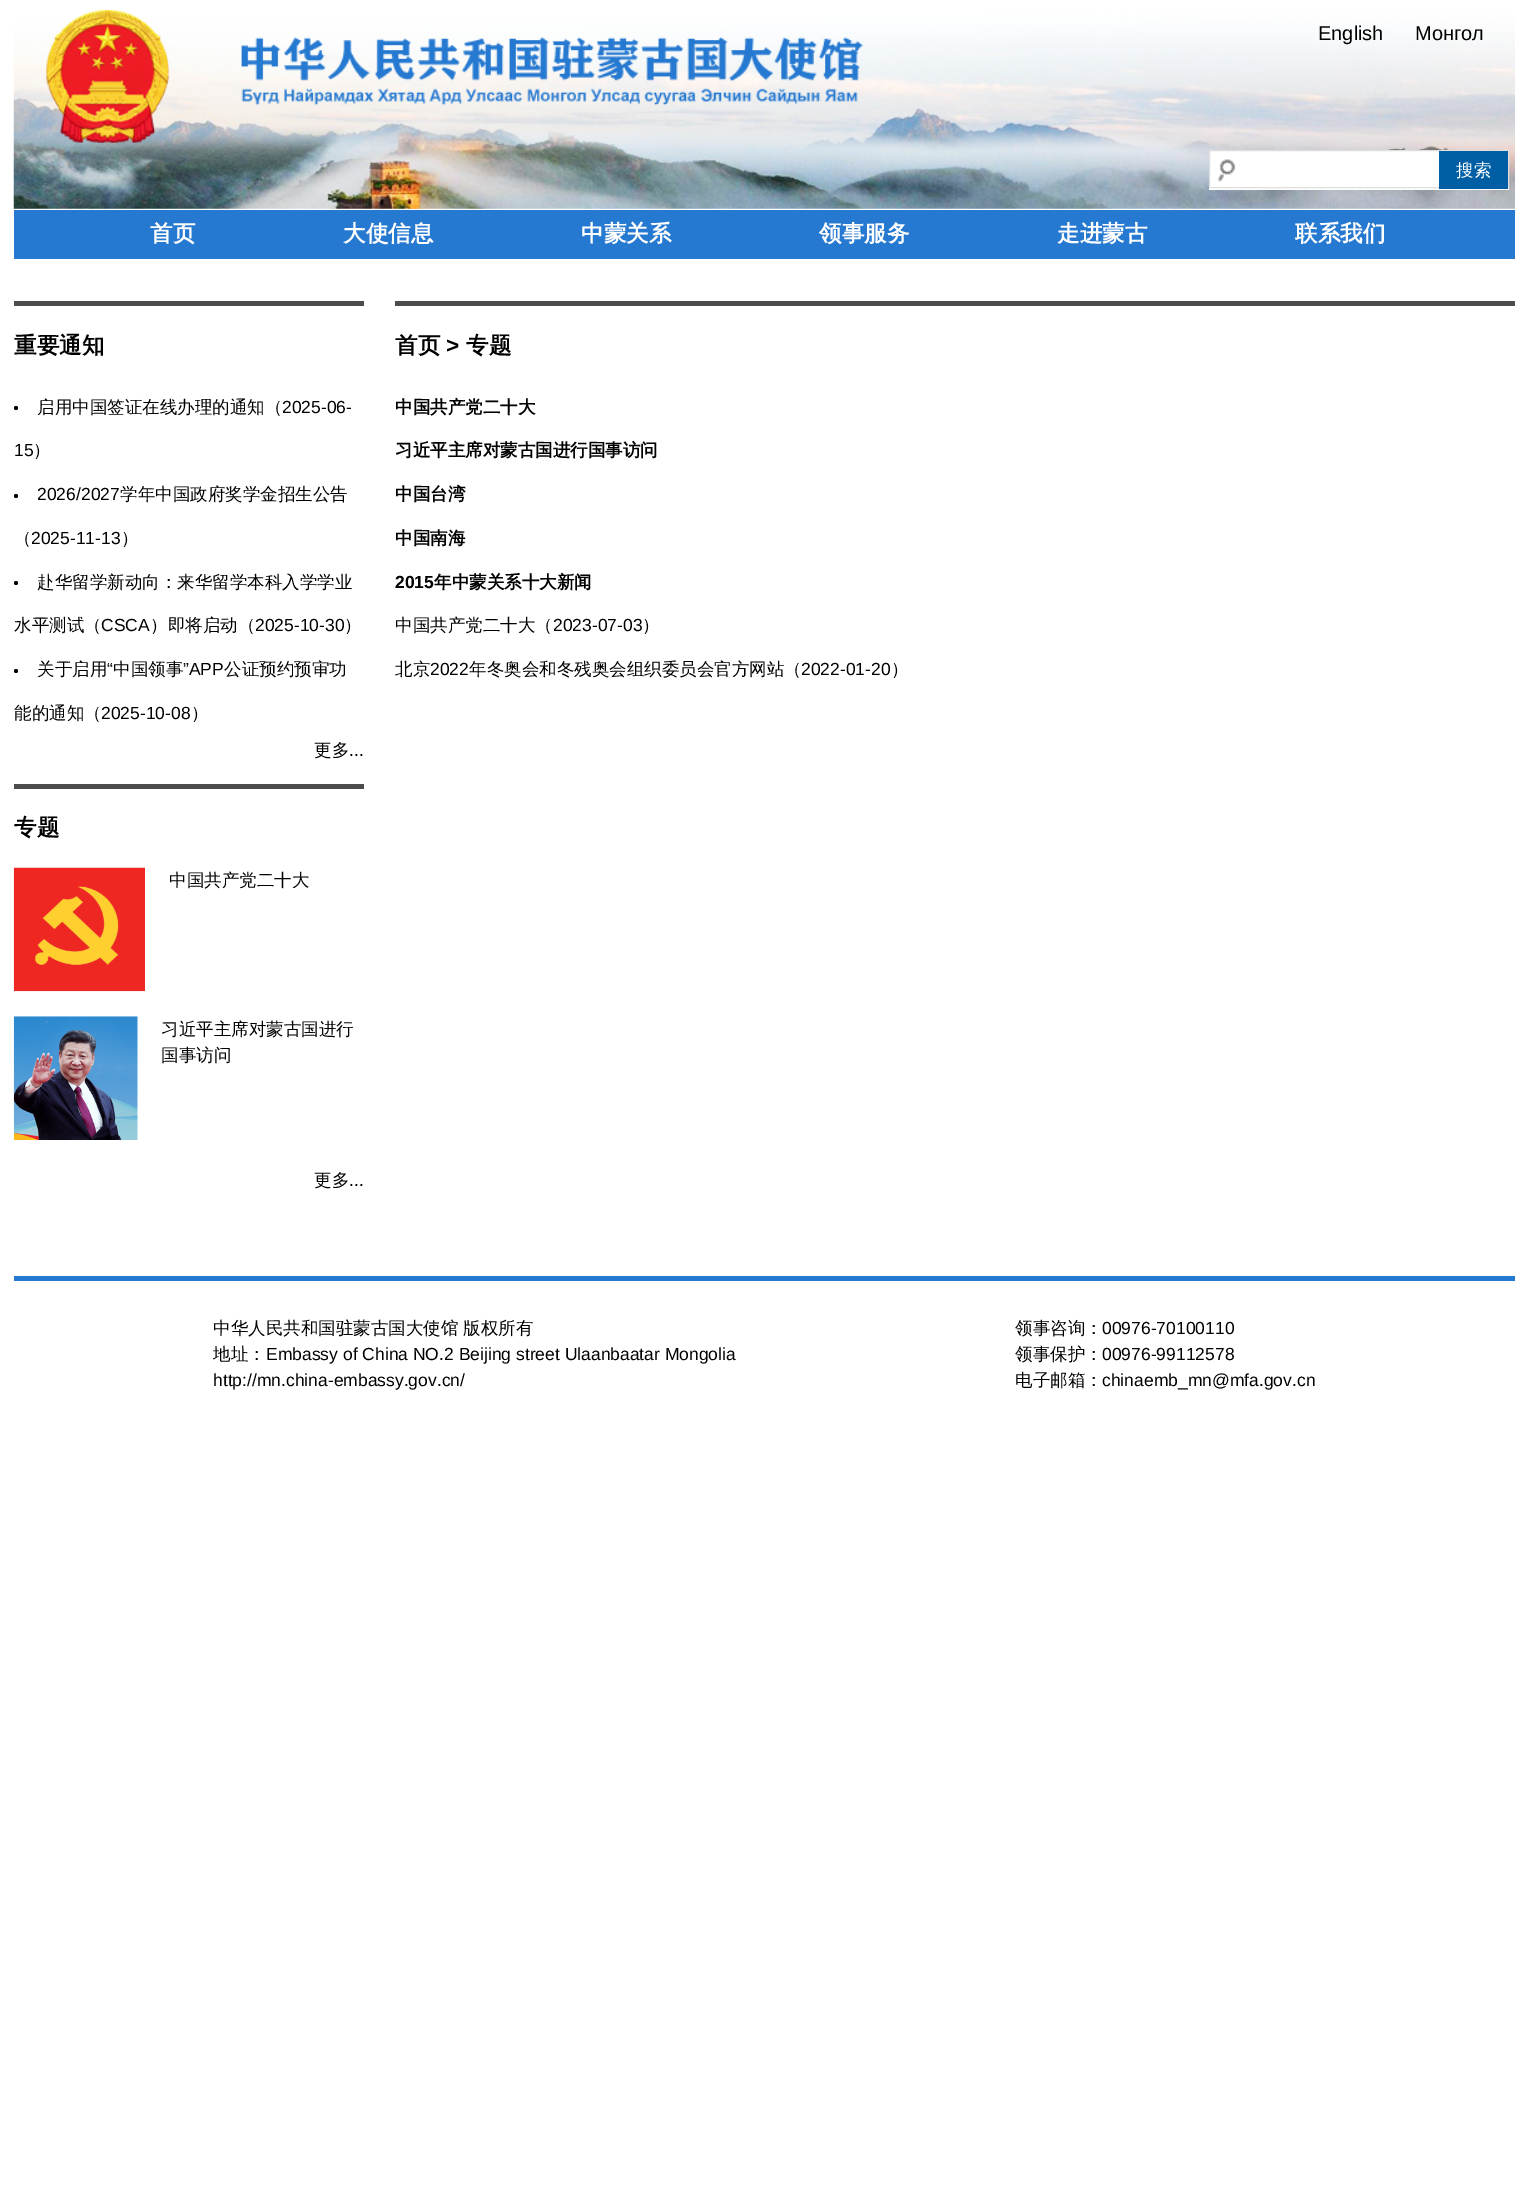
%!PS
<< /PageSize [1528 2186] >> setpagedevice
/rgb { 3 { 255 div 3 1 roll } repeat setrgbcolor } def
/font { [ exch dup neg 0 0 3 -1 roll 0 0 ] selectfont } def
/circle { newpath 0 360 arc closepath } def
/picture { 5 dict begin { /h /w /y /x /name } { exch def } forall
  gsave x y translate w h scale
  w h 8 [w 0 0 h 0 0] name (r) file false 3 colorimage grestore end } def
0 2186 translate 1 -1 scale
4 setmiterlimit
255 255 255 rgb
0 0 1528 2186 rectfill
(img/1.rgb) 13 9 1502 200 picture
1209 151 300 39 rectfill
223 223 223 rgb
1209.5 150.5 299 37 rectstroke
(img/2.rgb) 1217 159 19 23 picture
[
  [1439 151 69 38 0 94 164]
  [14 210 1501 49 38 121 209]
  [14 301 350 5 77 77 77]
] { aload pop rgb rectfill } forall
0 0 0 rgb
16 408 2 circle fill
16 496 2 circle fill
16 583 2 circle fill
16 671 2 circle fill
77 77 77 rgb
14 784 350 5 rectfill
(img/3.rgb) 13 867 132 125 picture
(img/4.rgb) 13 1016 125 124 picture
395 301 1120 5 rectfill
38 121 209 rgb
14 1276 1501 5 rectfill
/LiberationSans-Regular 20 font
0 0 0 rgb
1318 40 moveto (English) show
1415 40 moveto (Монгол) show
/WenQuanYiZenHei-Medium 17.5 font
255 255 255 rgb
1456 176 moveto (搜索) show
/WenQuanYiZenHei-Bold 22.5 font
[
  [(首页) 150 241]
  [(大使信息) 343 241]
  [(中蒙关系) 581 241]
  [(领事服务) 819 241]
  [(走进蒙古) 1057 241]
  [(联系我们) 1295 241]
] { aload pop moveto show } forall
0 0 0 rgb
14 353 moveto (重要通知) show
/WenQuanYiZenHei-Medium 17.5 font
37 413 moveto (启用中国签证在线办理的通知（) show
/LiberationSans-Regular 17.5 font
282 413 moveto (2025-06-) show
14 456 moveto (15) show
/WenQuanYiZenHei-Medium 17.5 font
33 456 moveto (）) show
/LiberationSans-Regular 17.5 font
37 500 moveto (2026/2027) show
/WenQuanYiZenHei-Medium 17.5 font
120 500 moveto (学年中国政府奖学金招生公告) show
14 544 moveto (（) show
/LiberationSans-Regular 17.5 font
31 544 moveto (2025-11-13) show
/WenQuanYiZenHei-Medium 17.5 font
[
  [(）) 121 544]
  [(赴华留学新动向：来华留学本科入学学业) 37 588]
  [(水平测试（) 14 631]
] { aload pop moveto show } forall
/LiberationSans-Regular 17.5 font
101 631 moveto (CSCA) show
/WenQuanYiZenHei-Medium 17.5 font
150 631 moveto (）即将启动（) show
/LiberationSans-Regular 17.5 font
255 631 moveto (2025-10-30) show
/WenQuanYiZenHei-Medium 17.5 font
344 631 moveto (）) show
37 675 moveto (关于启用) show
/LiberationSans-Regular 17.5 font
107 675 moveto (“) show
/WenQuanYiZenHei-Medium 17.5 font
113 675 moveto (中国领事) show
/LiberationSans-Regular 17.5 font
183 675 moveto (”APP) show
/WenQuanYiZenHei-Medium 17.5 font
224 675 moveto (公证预约预审功) show
14 719 moveto (能的通知（) show
/LiberationSans-Regular 17.5 font
101 719 moveto (2025-10-08) show
/WenQuanYiZenHei-Medium 17.5 font
191 719 moveto (）) show
314 756 moveto (更多) show
/LiberationSans-Regular 17.5 font
349 756 moveto (...) show
/WenQuanYiZenHei-Bold 22.5 font
14 835 moveto (专题) show
/WenQuanYiZenHei-Medium 17.5 font
[
  [(中国共产党二十大) 169 886]
  [(习近平主席对蒙古国进行) 161 1035]
  [(国事访问) 161 1061]
  [(更多) 314 1186]
] { aload pop moveto show } forall
/LiberationSans-Regular 17.5 font
349 1186 moveto (...) show
/WenQuanYiZenHei-Bold 22.5 font
395 353 moveto (首页) show
/LiberationSans-Bold 22.5 font
446 353 moveto (>) show
/WenQuanYiZenHei-Bold 22.5 font
466 353 moveto (专题) show
/WenQuanYiZenHei-Bold 17.5 font
[
  [(中国共产党二十大) 395 413]
  [(习近平主席对蒙古国进行国事访问) 395 456]
  [(中国台湾) 395 500]
  [(中国南海) 395 544]
] { aload pop moveto show } forall
/LiberationSans-Bold 17.5 font
395 588 moveto (2015) show
/WenQuanYiZenHei-Bold 17.5 font
434 588 moveto (年中蒙关系十大新闻) show
/WenQuanYiZenHei-Medium 17.5 font
395 631 moveto (中国共产党二十大（) show
/LiberationSans-Regular 17.5 font
553 631 moveto (2023-07-03) show
/WenQuanYiZenHei-Medium 17.5 font
642 631 moveto (）) show
395 675 moveto (北京) show
/LiberationSans-Regular 17.5 font
430 675 moveto (2022) show
/WenQuanYiZenHei-Medium 17.5 font
469 675 moveto (年冬奥会和冬残奥会组织委员会官方网站（) show
/LiberationSans-Regular 17.5 font
801 675 moveto (2022-01-20) show
/WenQuanYiZenHei-Medium 17.5 font
[
  [(）) 891 675]
  [(中华人民共和国驻蒙古国大使馆 版权所有) 213 1334]
  [(地址：) 213 1360]
] { aload pop moveto show } forall
/LiberationSans-Regular 17.5 font
266 1360 moveto (Embassy of China NO.2 Beijing street Ulaanbaatar Mongolia) show
213 1386 moveto (http://mn.china-embassy.gov.cn/) show
/WenQuanYiZenHei-Medium 17.5 font
1015 1334 moveto (领事咨询：) show
/LiberationSans-Regular 17.5 font
1102 1334 moveto (00976-70100110) show
/WenQuanYiZenHei-Medium 17.5 font
1015 1360 moveto (领事保护：) show
/LiberationSans-Regular 17.5 font
1102 1360 moveto (00976-99112578) show
/WenQuanYiZenHei-Medium 17.5 font
1015 1386 moveto (电子邮箱：) show
/LiberationSans-Regular 17.5 font
1102 1386 moveto (chinaemb_mn@mfa.gov.cn) show
showpage
